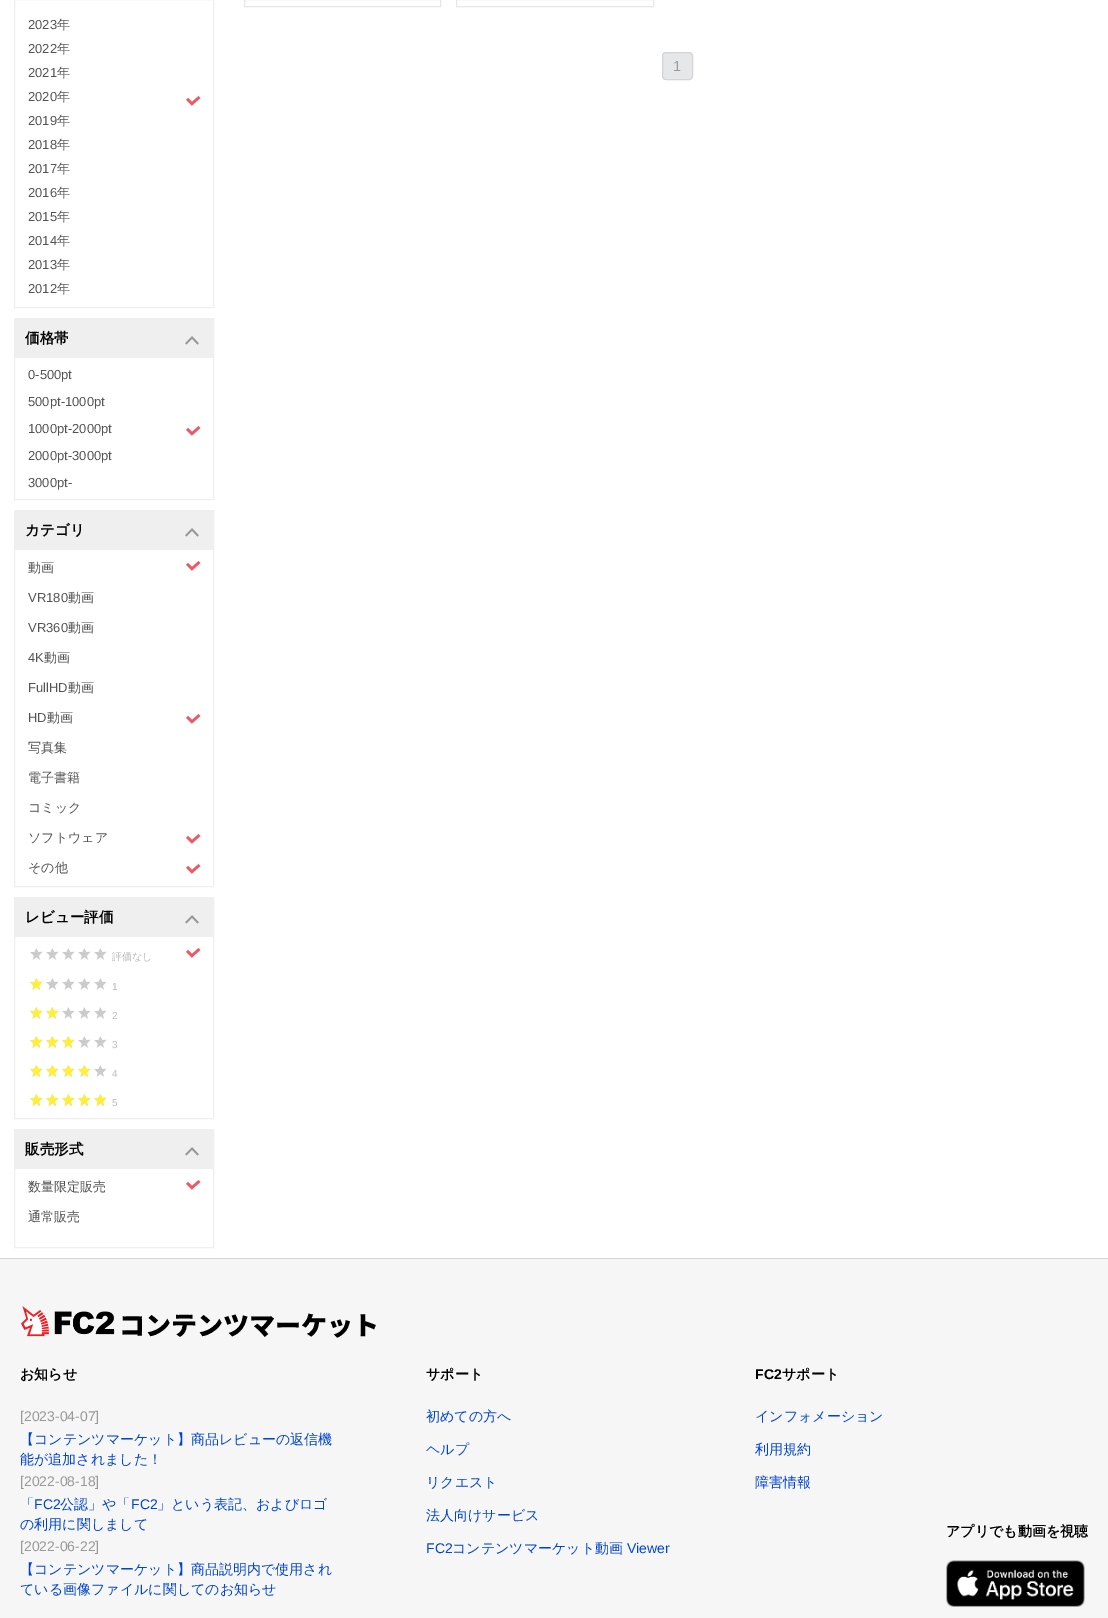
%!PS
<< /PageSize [1108 1618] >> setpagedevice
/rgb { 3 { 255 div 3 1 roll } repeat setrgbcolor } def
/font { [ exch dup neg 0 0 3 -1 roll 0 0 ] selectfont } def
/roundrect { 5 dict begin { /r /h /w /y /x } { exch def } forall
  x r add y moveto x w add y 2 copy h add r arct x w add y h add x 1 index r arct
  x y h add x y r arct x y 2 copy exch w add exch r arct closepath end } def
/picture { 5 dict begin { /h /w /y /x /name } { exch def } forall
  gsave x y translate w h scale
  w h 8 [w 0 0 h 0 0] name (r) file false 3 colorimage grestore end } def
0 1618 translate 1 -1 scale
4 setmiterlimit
255 255 255 rgb
0 0 1108 1618 rectfill
239 239 239 rgb
14.5 -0.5 199 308 rectstroke
(img/1.rgb) 186 96 15 10 picture
14.5 318.5 199 181 rectstroke
15 319 198 39 rectfill
(img/2.rgb) 185 336 14 9 picture
(img/1.rgb) 186 426 15 10 picture
14.5 510.5 199 376 rectstroke
15 511 198 39 rectfill
(img/2.rgb) 185 528 14 9 picture
(img/1.rgb) 186 561 15 10 picture
(img/1.rgb) 186 714 15 10 picture
(img/1.rgb) 186 834 15 10 picture
(img/1.rgb) 186 864 15 10 picture
14.5 897.5 199 221 rectstroke
15 898 198 39 rectfill
(img/2.rgb) 185 915 14 9 picture
(img/3.rgb) 30 948 77 12 picture
(img/1.rgb) 186 948 15 10 picture
(img/3.rgb) 30 978 77 12 picture
(img/4.rgb) 30 978 13 12 picture
(img/3.rgb) 30 1007 77 12 picture
(img/4.rgb) 30 1007 13 12 picture
(img/4.rgb) 46 1007 13 12 picture
(img/3.rgb) 30 1036 77 12 picture
(img/4.rgb) 30 1036 13 12 picture
(img/4.rgb) 46 1036 13 12 picture
(img/4.rgb) 62 1036 13 12 picture
(img/3.rgb) 30 1065 77 12 picture
(img/4.rgb) 30 1065 13 12 picture
(img/4.rgb) 46 1065 13 12 picture
(img/4.rgb) 62 1065 13 12 picture
(img/4.rgb) 78 1065 13 12 picture
(img/3.rgb) 30 1094 77 12 picture
(img/4.rgb) 30 1094 13 12 picture
(img/4.rgb) 46 1094 13 12 picture
(img/4.rgb) 62 1094 13 12 picture
(img/4.rgb) 78 1094 13 12 picture
(img/4.rgb) 94 1094 13 12 picture
14.5 1129.5 199 118 rectstroke
15 1130 198 39 rectfill
(img/2.rgb) 185 1147 14 9 picture
(img/1.rgb) 186 1180 15 10 picture
231 231 231 rgb
244.5 -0.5 196 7 rectstroke
456.5 -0.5 197 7 rectstroke
230 231 232 rgb
662.5 52.5 30 27 3.5 roundrect gsave fill grestore
212 212 212 rgb
stroke
246 246 246 rgb
0 1259 1108 359 rectfill
212 212 212 rgb
0 1258 1108 1 rectfill
(img/5.rgb) 21 1306 94 31 picture
(img/6.rgb) 946 1560 139 47 picture
/LiberationSans-Regular 13 font
83 83 83 rgb
28 29 moveto (2023) show
/WenQuanYiZenHei-Medium 13 font
57 29 moveto (年) show
/LiberationSans-Regular 13 font
28 53 moveto (2022) show
/WenQuanYiZenHei-Medium 13 font
57 53 moveto (年) show
/LiberationSans-Regular 13 font
28 77 moveto (2021) show
/WenQuanYiZenHei-Medium 13 font
57 77 moveto (年) show
/LiberationSans-Regular 13 font
28 101 moveto (2020) show
/WenQuanYiZenHei-Medium 13 font
57 101 moveto (年) show
/LiberationSans-Regular 13 font
28 125 moveto (2019) show
/WenQuanYiZenHei-Medium 13 font
57 125 moveto (年) show
/LiberationSans-Regular 13 font
28 149 moveto (2018) show
/WenQuanYiZenHei-Medium 13 font
57 149 moveto (年) show
/LiberationSans-Regular 13 font
28 173 moveto (2017) show
/WenQuanYiZenHei-Medium 13 font
57 173 moveto (年) show
/LiberationSans-Regular 13 font
28 197 moveto (2016) show
/WenQuanYiZenHei-Medium 13 font
57 197 moveto (年) show
/LiberationSans-Regular 13 font
28 221 moveto (2015) show
/WenQuanYiZenHei-Medium 13 font
57 221 moveto (年) show
/LiberationSans-Regular 13 font
28 245 moveto (2014) show
/WenQuanYiZenHei-Medium 13 font
57 245 moveto (年) show
/LiberationSans-Regular 13 font
28 269 moveto (2013) show
/WenQuanYiZenHei-Medium 13 font
57 269 moveto (年) show
/LiberationSans-Regular 13 font
28 293 moveto (2012) show
/WenQuanYiZenHei-Medium 13 font
57 293 moveto (年) show
/WenQuanYiZenHei-Bold 14.5 font
0 0 0 rgb
25 343 moveto (価格帯) show
/LiberationSans-Regular 13 font
83 83 83 rgb
[
  [(0-500pt) 28 379]
  [(500pt-1000pt) 28 406]
  [(1000pt-2000pt) 28 433]
  [(2000pt-3000pt) 28 460]
  [(3000pt-) 28 487]
] { aload pop moveto show } forall
/WenQuanYiZenHei-Bold 14.5 font
0 0 0 rgb
25 535 moveto (カテゴリ) show
/WenQuanYiZenHei-Medium 13 font
83 83 83 rgb
28 572 moveto (動画) show
/LiberationSans-Regular 13 font
28 602 moveto (VR180) show
/WenQuanYiZenHei-Medium 13 font
68 602 moveto (動画) show
/LiberationSans-Regular 13 font
28 632 moveto (VR360) show
/WenQuanYiZenHei-Medium 13 font
68 632 moveto (動画) show
/LiberationSans-Regular 13 font
28 662 moveto (4K) show
/WenQuanYiZenHei-Medium 13 font
44 662 moveto (動画) show
/LiberationSans-Regular 13 font
28 692 moveto (FullHD) show
/WenQuanYiZenHei-Medium 13 font
68 692 moveto (動画) show
/LiberationSans-Regular 13 font
28 722 moveto (HD) show
/WenQuanYiZenHei-Medium 13 font
[
  [(動画) 47 722]
  [(写真集) 28 752]
  [(電子書籍) 28 782]
  [(コミック) 28 812]
  [(ソフトウェア) 28 842]
  [(その他) 28 872]
] { aload pop moveto show } forall
/WenQuanYiZenHei-Bold 14.5 font
0 0 0 rgb
25 922 moveto (レビュー評価) show
/WenQuanYiZenHei-Medium 10 font
186 186 186 rgb
112 960 moveto (評価なし) show
/LiberationSans-Regular 10 font
[
  [(1) 112 990]
  [(2) 112 1019]
  [(3) 112 1048]
  [(4) 112 1077]
  [(5) 112 1106]
] { aload pop moveto show } forall
/WenQuanYiZenHei-Bold 14.5 font
0 0 0 rgb
25 1154 moveto (販売形式) show
/WenQuanYiZenHei-Medium 13 font
83 83 83 rgb
28 1191 moveto (数量限定販売) show
28 1221 moveto (通常販売) show
/LiberationSans-Regular 14.5 font
153 153 153 rgb
673 71 moveto (1) show
/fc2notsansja-Black 26 font
0 0 0 rgb
119 1335 moveto (コンテンツマーケット) show
/WenQuanYiZenHei-Bold 14 font
20 1379 moveto (お知らせ) show
/LiberationSans-Regular 14 font
153 153 153 rgb
20 1421 moveto ([2023-04-07]) show
/WenQuanYiZenHei-Medium 14 font
0 68 204 rgb
20 1444 moveto (【コンテンツマーケット】商品レビューの返信機) show
20 1464 moveto (能が追加されました！) show
/LiberationSans-Regular 14 font
153 153 153 rgb
20 1486 moveto ([2022-08-18]) show
/WenQuanYiZenHei-Medium 14 font
0 68 204 rgb
20 1509 moveto (「) show
/LiberationSans-Regular 14 font
34 1509 moveto (FC2) show
/WenQuanYiZenHei-Medium 14 font
60 1509 moveto (公認」や「) show
/LiberationSans-Regular 14 font
131 1509 moveto (FC2) show
/WenQuanYiZenHei-Medium 14 font
157 1509 moveto (」という表記、およびロゴ) show
20 1529 moveto (の利用に関しまして) show
/LiberationSans-Regular 14 font
153 153 153 rgb
20 1551 moveto ([2022-06-22]) show
/WenQuanYiZenHei-Medium 14 font
0 68 204 rgb
20 1574 moveto (【コンテンツマーケット】商品説明内で使用され) show
20 1594 moveto (ている画像ファイルに関してのお知らせ) show
/WenQuanYiZenHei-Bold 14 font
0 0 0 rgb
426 1379 moveto (サポート) show
/WenQuanYiZenHei-Medium 14 font
0 68 204 rgb
[
  [(初めての方へ) 426 1421]
  [(ヘルプ) 426 1454]
  [(リクエスト) 426 1487]
  [(法人向けサービス) 426 1520]
] { aload pop moveto show } forall
/LiberationSans-Regular 14 font
426 1553 moveto (FC2) show
/WenQuanYiZenHei-Medium 14 font
452 1553 moveto (コンテンツマーケット動画) show
/LiberationSans-Regular 14 font
627 1553 moveto (Viewer) show
/LiberationSans-Bold 14 font
0 0 0 rgb
755 1379 moveto (FC2) show
/WenQuanYiZenHei-Bold 14 font
782 1379 moveto (サポート) show
/WenQuanYiZenHei-Medium 14 font
0 68 204 rgb
[
  [(インフォメーション) 755 1421]
  [(利用規約) 755 1454]
  [(障害情報) 755 1487]
] { aload pop moveto show } forall
/WenQuanYiZenHei-Bold 14 font
0 0 0 rgb
946 1536 moveto (アプリでも動画を視聴) show
showpage
